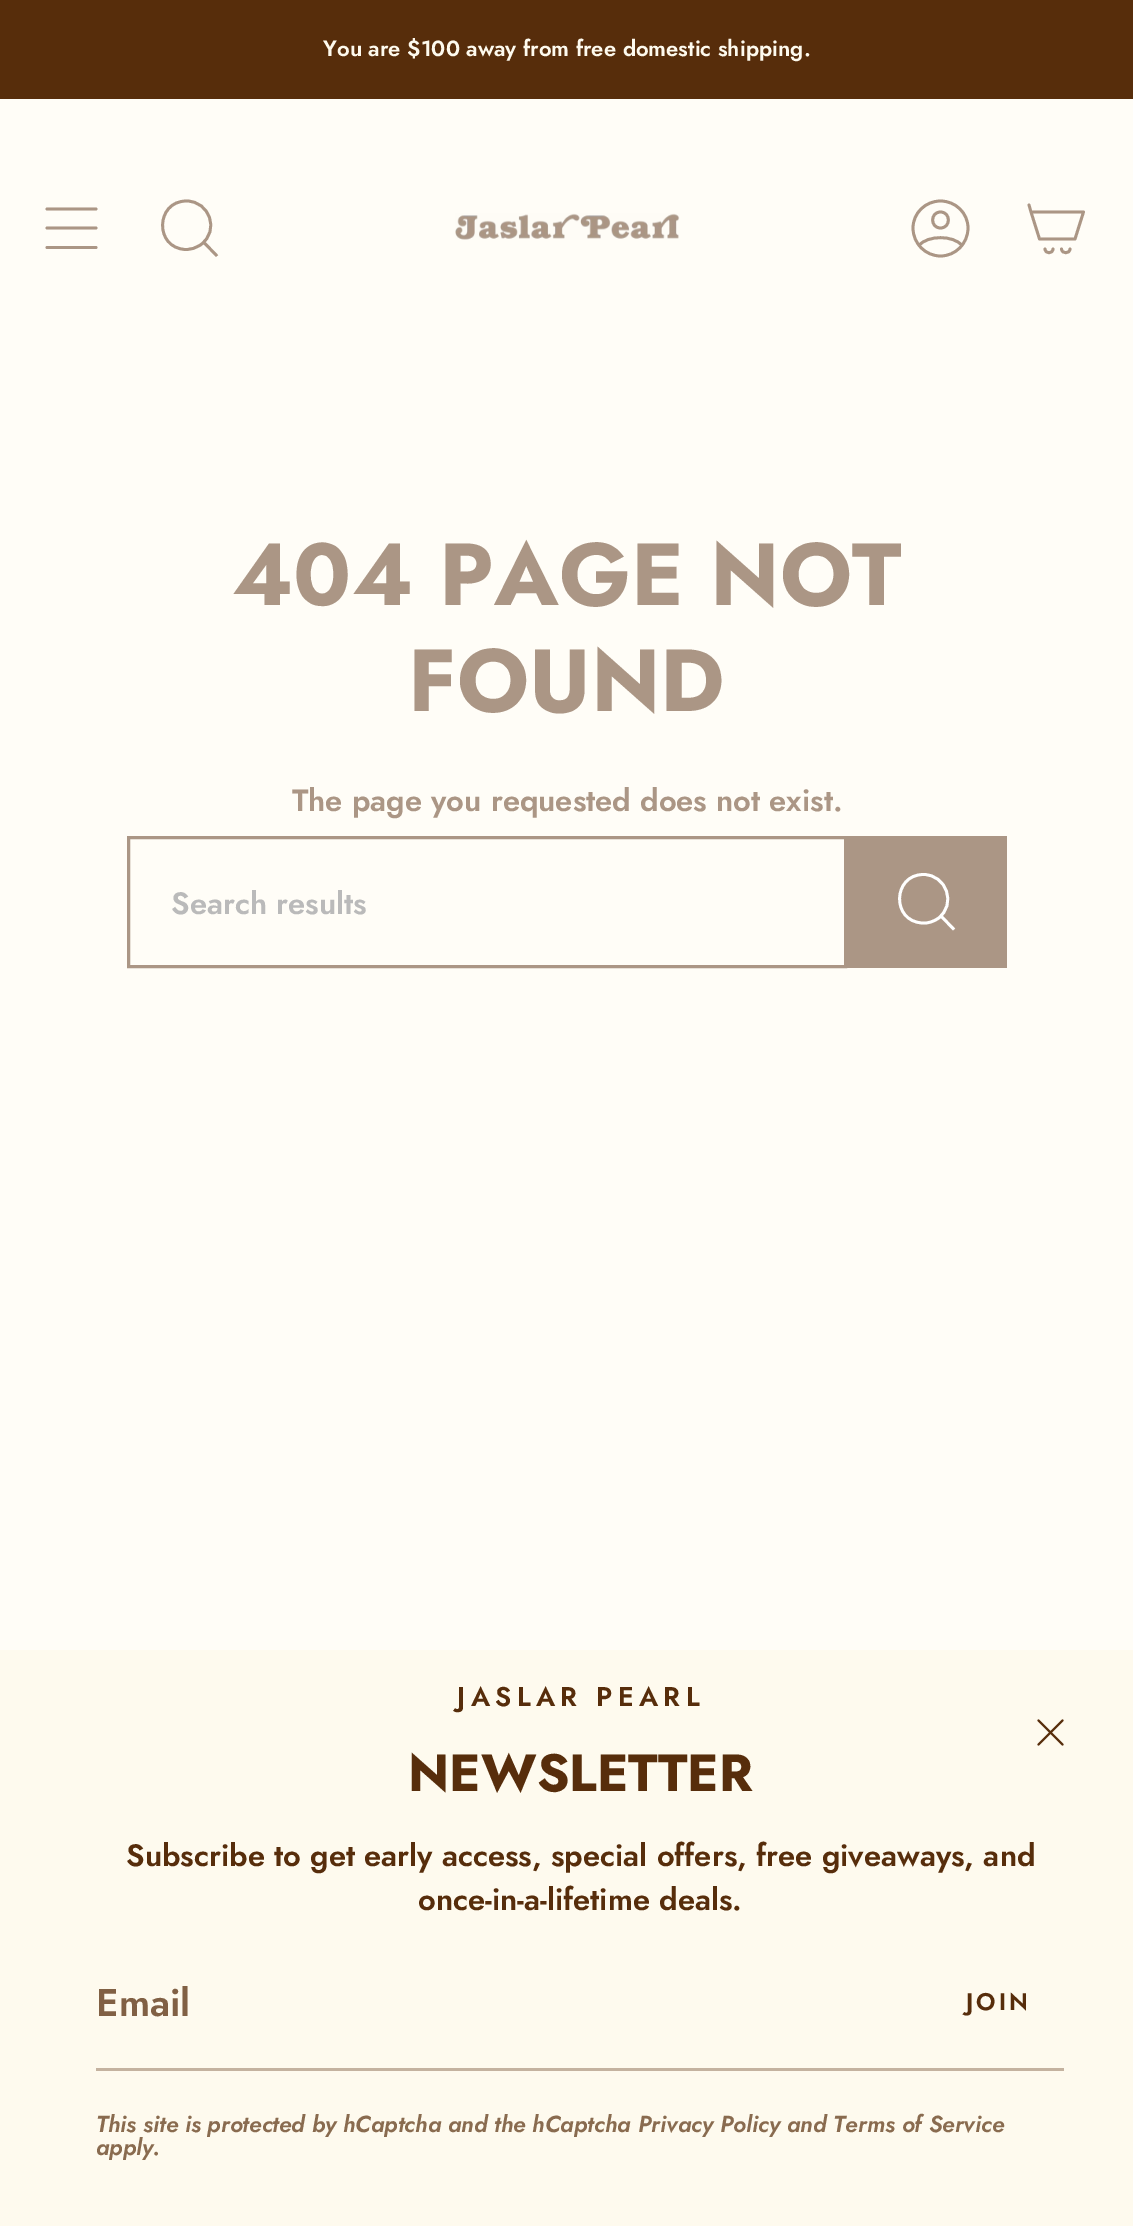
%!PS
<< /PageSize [1133 2226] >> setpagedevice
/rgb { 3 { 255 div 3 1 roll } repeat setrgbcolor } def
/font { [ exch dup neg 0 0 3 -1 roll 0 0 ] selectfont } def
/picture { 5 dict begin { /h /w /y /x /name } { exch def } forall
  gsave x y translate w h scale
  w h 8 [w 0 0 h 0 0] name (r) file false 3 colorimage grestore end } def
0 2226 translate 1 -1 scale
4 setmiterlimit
255 253 247 rgb
0 0 1133 2226 rectfill
87 45 11 rgb
0 0 1133 99 rectfill
171 150 133 rgb
2.8 setlinewidth
1 setlinecap
1 setlinejoin
47 209 moveto 96 209 lineto 47 228 moveto 96 228 lineto 47 247.5 moveto 96 247.5 lineto stroke
0 setlinecap
0 setlinejoin
186.5 201 moveto 209.5 201 220 230.5 201 244.5 curveto 196.5 248 191 249.5 185.5 249.5 curveto 154 248 155.5 201 186.5 201 curveto closepath 204 242.5 moveto 217 256 lineto stroke
(img/1.rgb) 455 213 225 27 picture
1 setlinecap
1 setlinejoin
940.5 201 moveto 925.5 201 913 213 913 228 curveto 913 243.5 925.5 256 940.5 256 curveto 955.5 256 968 243.5 968 228 curveto 968 213 955.5 201 940.5 201 curveto closepath 919 245.5 moveto 927.5 235 953.5 235 962 245.5 curveto 940.5 228 moveto 951 228 951 212 940.5 212 curveto 930 212 930 228 940.5 228 curveto closepath stroke
1031 212 moveto 1083.5 212 lineto 1075 239 lineto 1039.5 239 lineto closepath 1031 212 moveto 1029 205 lineto 1053 249 moveto 1053 254 1045 254 1045 249 curveto 1070 249 moveto 1070 254 1061.5 254 1061.5 249 curveto stroke
3 setlinewidth
0 setlinecap
0 setlinejoin
128.5 837.5 717 129 rectstroke
847 836 160 132 rectfill
255 255 255 rgb
2.8 setlinewidth
923.5 874.5 moveto 946.5 874.5 957 904.5 938 918.5 curveto 933.5 921.5 928 923.5 922.5 923 curveto 891 921.5 892.5 874.5 923.5 874.5 curveto closepath 941 916 moveto 954 929.5 lineto stroke
254 250 238 rgb
0 1650 1133 576 rectfill
196 178 159 rgb
96 2068 968 3 rectfill
(img/2.rgb) 1037 1719 27 27 picture
/Jost-SemiBold 22 font
254 250 238 rgb
323 56 moveto (You are $100 away from free domestic shipping.) show
/Jost-Bold 88 font
171 150 133 rgb
232 605 moveto (404 PAGE NOT) show
408 711 moveto (FOUND) show
/Jost-SemiBold 30.8 font
292 811 moveto (The page you requested does not exist.) show
186 186 186 rgb
171 914 moveto (Search results) show
/Jost-SemiBold 27 font
87 45 11 rgb
457 1706 moveto 5.4 0 (JASLAR PEARL) ashow
/Jost-Bold 52.25 font
408 1791 moveto (NEWSLETTER) show
/Jost-SemiBold 30.8 font
126 1866 moveto (Subscribe to get early access, special offers, free giveaways, and) show
418 1910 moveto (once-in-a-lifetime deals.) show
/Jost-SemiBold 38.5 font
129 96 68 rgb
96 2016 moveto (Email) show
/Jost-SemiBold 24 font
87 45 11 rgb
966 2010 moveto 3 0 (JOIN) ashow
/Jost-SemiBoldItalic 23.1 font
137 107 79 rgb
96 2132 moveto -0.25 0 32 (This site is protected by hCaptcha and the hCaptcha) widthshow
[
  [(Privacy Policy) 638 2132]
  [(and Terms of Service) 787 2132]
  [(apply.) 96 2155]
] { aload pop moveto show } forall
showpage
